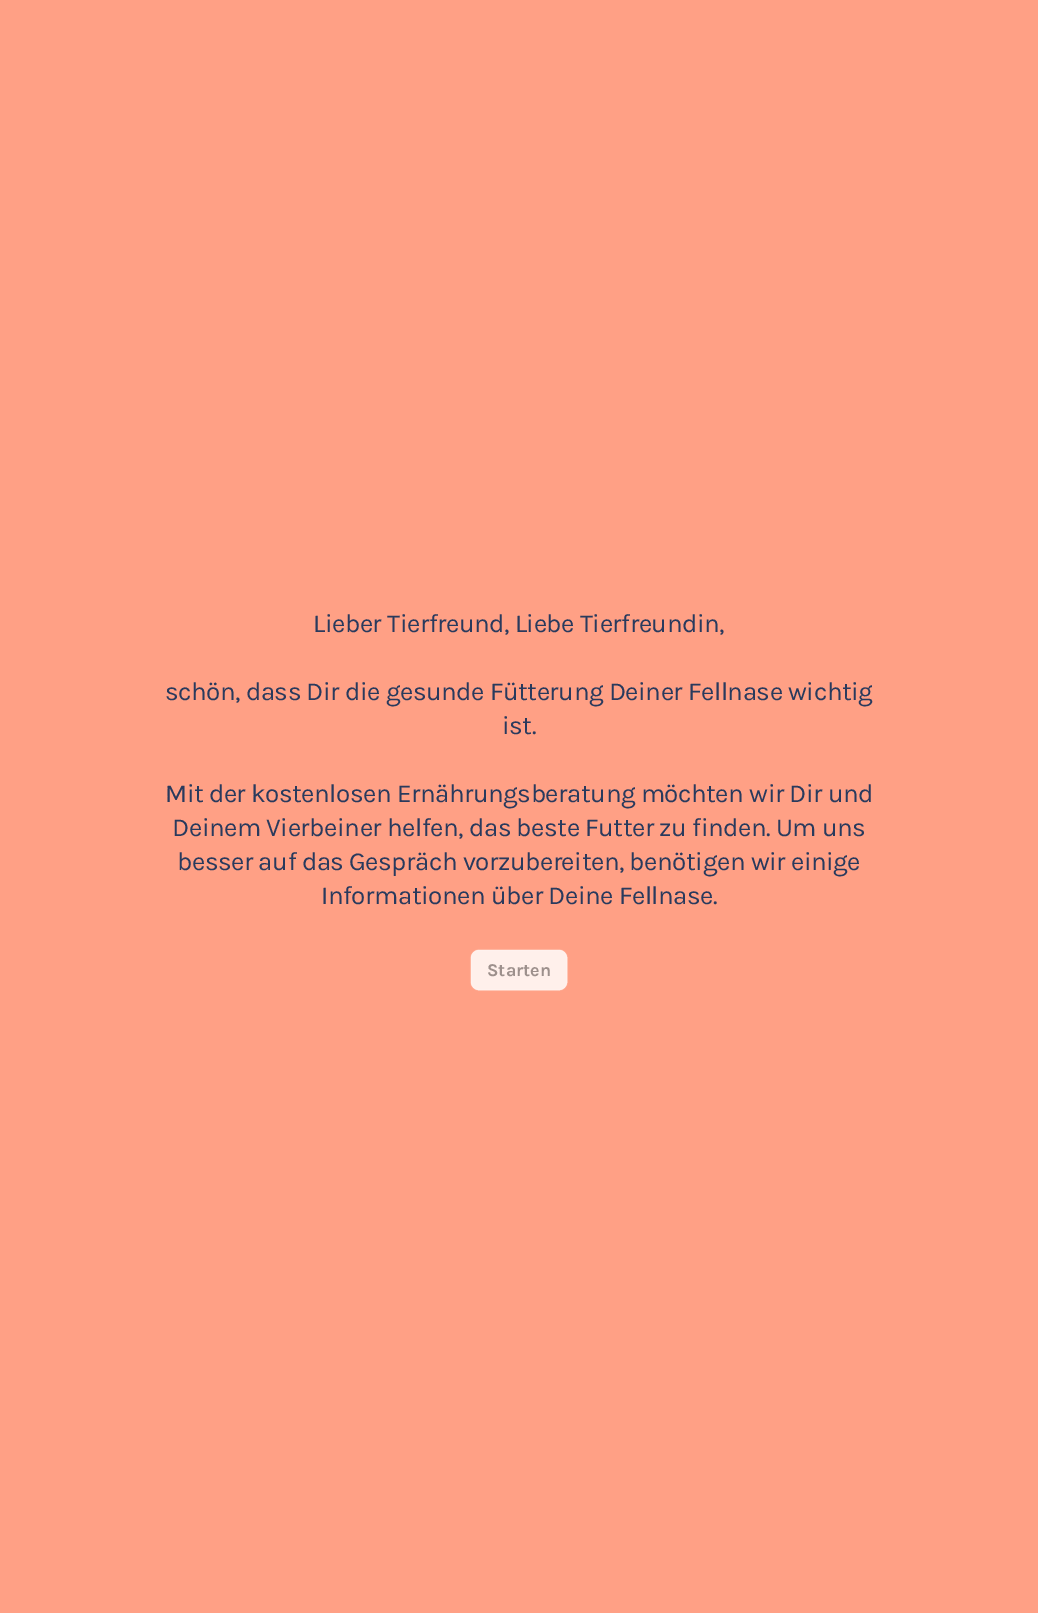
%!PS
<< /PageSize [1038 1613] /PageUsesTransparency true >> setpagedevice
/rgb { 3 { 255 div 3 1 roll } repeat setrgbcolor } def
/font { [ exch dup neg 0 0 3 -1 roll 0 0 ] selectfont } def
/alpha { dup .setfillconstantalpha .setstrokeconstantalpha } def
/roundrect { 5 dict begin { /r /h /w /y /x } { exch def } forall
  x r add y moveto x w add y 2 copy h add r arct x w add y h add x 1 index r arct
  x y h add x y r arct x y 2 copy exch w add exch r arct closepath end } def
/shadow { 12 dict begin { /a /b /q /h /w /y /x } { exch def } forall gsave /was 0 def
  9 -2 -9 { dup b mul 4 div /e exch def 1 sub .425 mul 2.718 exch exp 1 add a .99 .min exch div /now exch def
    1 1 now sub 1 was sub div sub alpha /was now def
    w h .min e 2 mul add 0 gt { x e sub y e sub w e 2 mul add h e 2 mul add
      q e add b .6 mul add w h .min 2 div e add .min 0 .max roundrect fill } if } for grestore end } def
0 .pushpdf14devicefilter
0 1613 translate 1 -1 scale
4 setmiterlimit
255 160 133 rgb
0 0 1038 1613 rectfill
255 242 238 rgb
471.5 950.5 95 39 7.5 roundrect stroke
471 950 96 40 8 0.5 1 shadow
/Karla-Regular 26 font
41 58 93 rgb
313 632 moveto -0.5 0 (Lieber Tierfreund, Liebe Tierfreundin,) ashow
165 700 moveto -0.5 0 (schön, dass Dir die gesunde Fütterung Deiner Fellnase wichtig) ashow
502 734 moveto -0.5 0 (ist.) ashow
165 802 moveto -0.5 0 (Mit der kostenlosen Ernährungsberatung möchten wir Dir und) ashow
172 836 moveto -0.5 0 (Deinem Vierbeiner helfen, das beste Futter zu finden. Um uns) ashow
177 870 moveto -0.5 0 (besser auf das Gespräch vorzubereiten, benötigen wir einige) ashow
321 904 moveto -0.5 0 (Informationen über Deine Fellnase.) ashow
/Karla-Bold 18 font
157 144 140 rgb
487 976 moveto (Starten) show
.poppdf14devicefilter showpage
